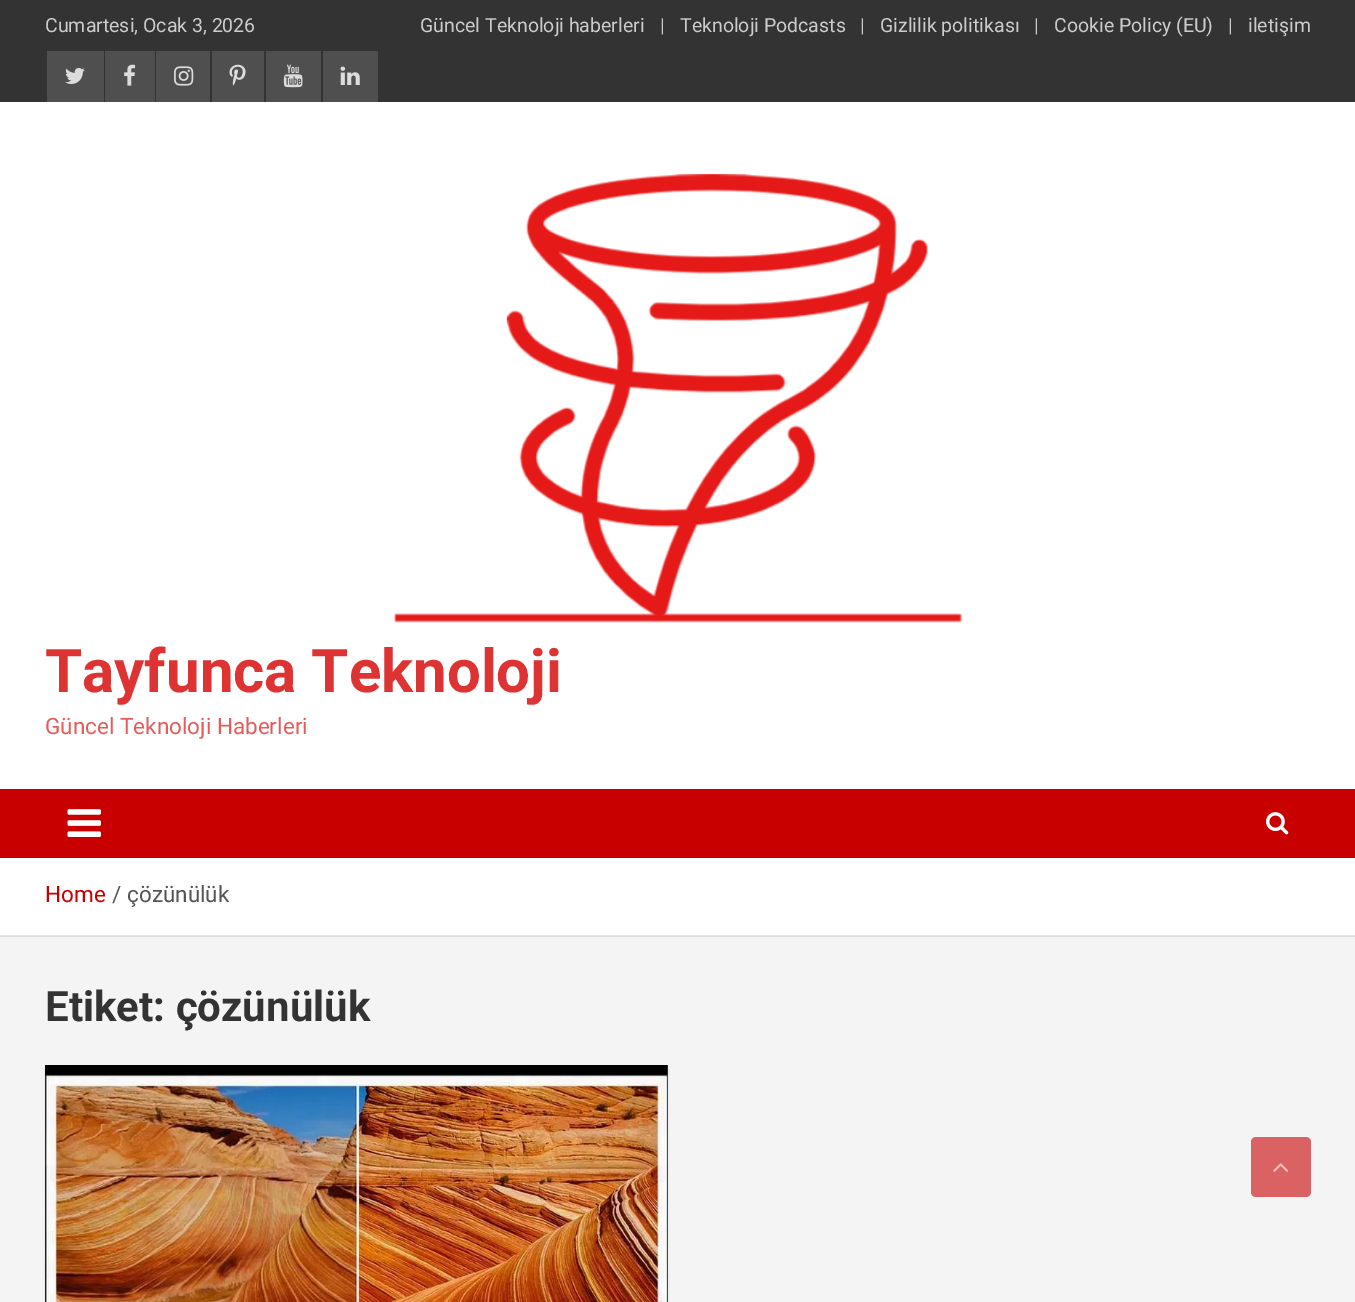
%!PS
<< /PageSize [1355 1302] /PageUsesTransparency true >> setpagedevice
/rgb { 3 { 255 div 3 1 roll } repeat setrgbcolor } def
/font { [ exch dup neg 0 0 3 -1 roll 0 0 ] selectfont } def
/alpha { dup .setfillconstantalpha .setstrokeconstantalpha } def
/roundrect { 5 dict begin { /r /h /w /y /x } { exch def } forall
  x r add y moveto x w add y 2 copy h add r arct x w add y h add x 1 index r arct
  x y h add x y r arct x y 2 copy exch w add exch r arct closepath end } def
/shadow { 12 dict begin { /a /b /q /h /w /y /x } { exch def } forall gsave /was 0 def
  9 -2 -9 { dup b mul 4 div /e exch def 1 sub .425 mul 2.718 exch exp 1 add a .99 .min exch div /now exch def
    1 1 now sub 1 was sub div sub alpha /was now def
    w h .min e 2 mul add 0 gt { x e sub y e sub w e 2 mul add h e 2 mul add
      q e add b .6 mul add w h .min 2 div e add .min 0 .max roundrect fill } if } for grestore end } def
/picture { 5 dict begin { /h /w /y /x /name } { exch def } forall
  gsave x y translate w h scale
  w h 8 [w 0 0 h 0 0] name (r) file false 3 colorimage grestore end } def
0 .pushpdf14devicefilter
0 1302 translate 1 -1 scale
4 setmiterlimit
244 244 244 rgb
0 0 1355 1302 rectfill
[
  [0 936 1355 1 220 220 220]
  [0 0 1355 102 51 51 51]
  [47 51 57 51 79 79 79]
] { aload pop rgb rectfill } forall
(img/1.rgb) 65 67 20 17 picture
105 51 50 51 rectfill
(img/2.rgb) 124 64 12 22 picture
156 51 54 51 rectfill
(img/3.rgb) 174 66 20 20 picture
212 51 52 51 rectfill
(img/4.rgb) 229 64 17 22 picture
266 51 55 51 rectfill
(img/5.rgb) 283 64 20 24 picture
323 51 55 51 rectfill
(img/6.rgb) 340 66 20 19 picture
255 255 255 rgb
0 102 1355 687 rectfill
(img/7.rgb) 394 174 568 449 picture
200 0 0 rgb
0 789 1355 69 rectfill
(img/8.rgb) 67 809 34 28 picture
(img/9.rgb) 1266 812 23 23 picture
255 255 255 rgb
0 858 1355 77 rectfill
230 230 230 rgb
0 935 1355 1 rectfill
0 0 0 rgb
45 1067 623 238 0 1 0.1 shadow
85 85 85 rgb
667 1065 1 237 rectfill
(img/10.rgb) 45 1065 623 237 picture
218 98 98 rgb
1251 1137 60 60 5 roundrect fill
(img/11.rgb) 1273 1163 16 9 picture
/Roboto-Regular 19.5 font
204 204 204 rgb
[
  [(Cumartesi, Ocak 3, 2026) 45 32]
  [(Güncel Teknoloji haberleri) 420 32]
  [(|) 660 32]
  [(Teknoloji Podcasts) 680 32]
  [(|) 860 32]
  [(Gizlilik politikası) 880 32]
  [(|) 1034 32]
  [(Cookie Policy \(EU\)) 1054 32]
  [(|) 1228 32]
  [(iletişim) 1248 32]
] { aload pop moveto show } forall
/Roboto-Bold 60 font
221 51 51 rgb
45 692 moveto (Tayfunca Teknoloji) show
/Roboto-Regular 22.5 font
228 92 92 rgb
45 734 moveto (Güncel Teknoloji Haberleri) show
200 0 0 rgb
45 902 moveto (Home) show
85 85 85 rgb
112 902 moveto (/) show
127 902 moveto (çözünülük) show
/Roboto-Bold 42 font
51 51 51 rgb
45 1021 moveto (Etiket: çözünülük) show
.poppdf14devicefilter showpage
